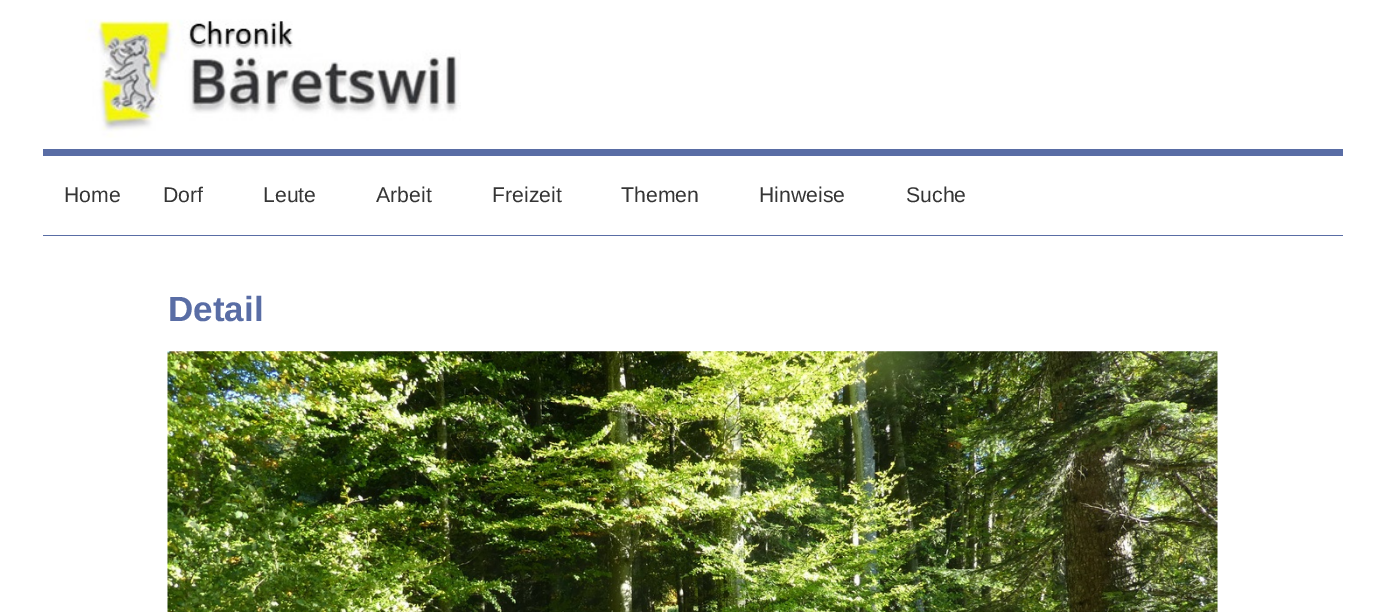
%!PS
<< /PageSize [1385 612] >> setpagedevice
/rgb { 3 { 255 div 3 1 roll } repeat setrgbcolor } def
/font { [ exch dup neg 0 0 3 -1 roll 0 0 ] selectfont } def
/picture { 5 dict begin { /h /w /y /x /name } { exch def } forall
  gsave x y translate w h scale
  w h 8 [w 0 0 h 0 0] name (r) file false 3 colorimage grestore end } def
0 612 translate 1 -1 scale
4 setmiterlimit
255 255 255 rgb
0 0 1385 612 rectfill
(img/1.rgb) 85 19 376 119 picture
89 109 165 rgb
43 149 1300 7 rectfill
43 235 1300 1 rectfill
(img/2.rgb) 167 351 1051 261 picture
/LiberationSans-Regular 21.25 font
53 53 53 rgb
[
  [(Home) 64 202]
  [(Dorf) 163 202]
  [(Leute) 263 202]
  [(Arbeit) 376 202]
  [(Freizeit) 492 202]
  [(Themen) 621 202]
  [(Hinweise) 759 202]
  [(Suche) 906 202]
] { aload pop moveto show } forall
/LiberationSans-Bold 35 font
89 109 165 rgb
168 321 moveto (Detail) show
showpage
